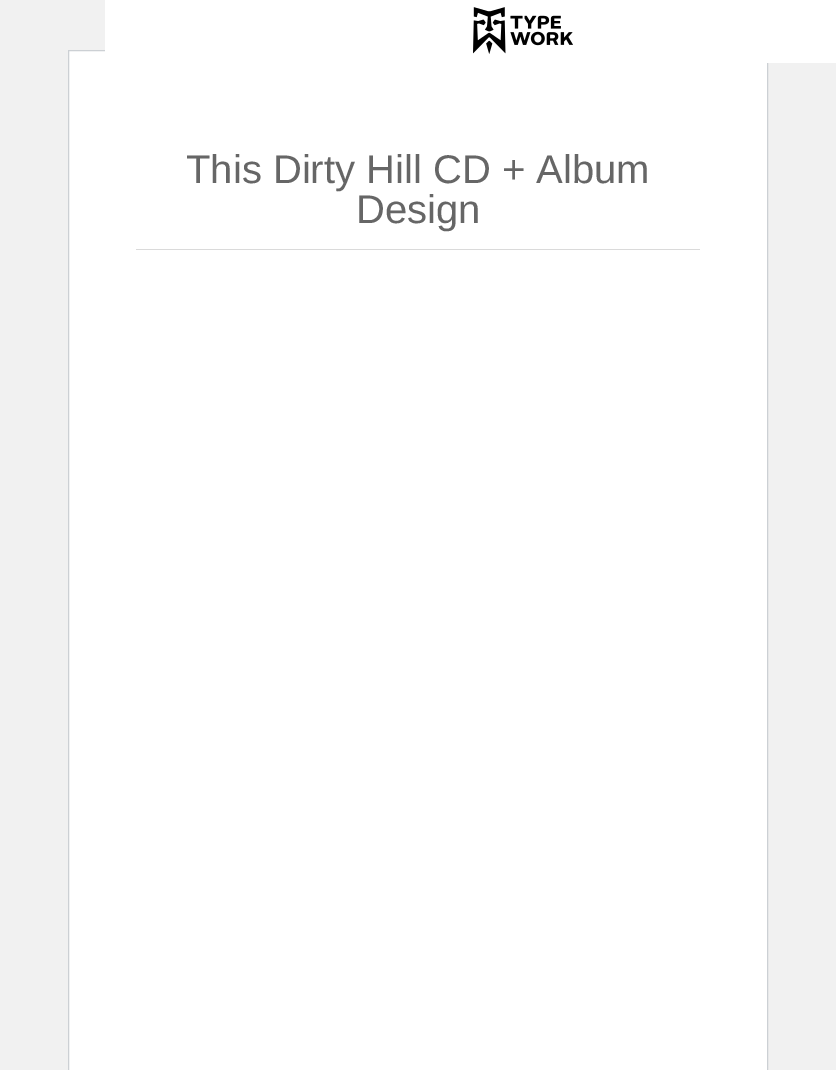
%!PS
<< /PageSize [836 1070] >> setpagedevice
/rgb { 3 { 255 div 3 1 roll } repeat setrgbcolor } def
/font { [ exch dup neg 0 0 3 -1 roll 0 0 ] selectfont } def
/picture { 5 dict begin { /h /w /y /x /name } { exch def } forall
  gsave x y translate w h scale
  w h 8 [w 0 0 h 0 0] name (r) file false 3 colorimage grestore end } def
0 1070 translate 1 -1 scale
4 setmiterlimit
241 241 241 rgb
0 0 836 1070 rectfill
255 255 255 rgb
68.5 50.5 moveto 767.5 50.5 lineto 767.5 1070.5 lineto 68.5 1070.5 lineto closepath gsave fill grestore
204 208 212 rgb
stroke
255 255 255 rgb
105 0 731 63 rectfill
(img/1.rgb) 473 7 100 47 picture
218 218 218 rgb
136 249 564 1 rectfill
/LiberationSans-Regular 40 font
102 102 102 rgb
186 183 moveto (This Dirty Hill CD + Album) show
356 223 moveto (Design) show
showpage
